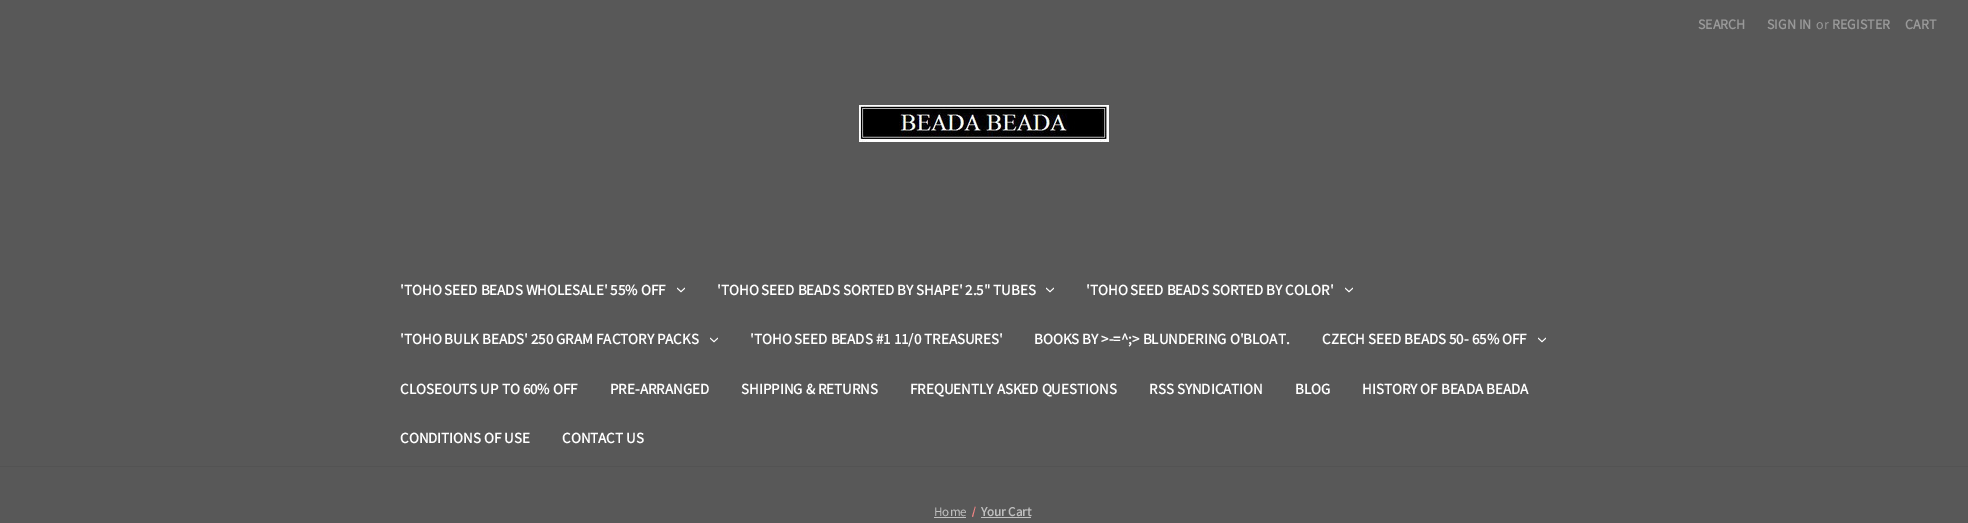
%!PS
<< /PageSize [1968 523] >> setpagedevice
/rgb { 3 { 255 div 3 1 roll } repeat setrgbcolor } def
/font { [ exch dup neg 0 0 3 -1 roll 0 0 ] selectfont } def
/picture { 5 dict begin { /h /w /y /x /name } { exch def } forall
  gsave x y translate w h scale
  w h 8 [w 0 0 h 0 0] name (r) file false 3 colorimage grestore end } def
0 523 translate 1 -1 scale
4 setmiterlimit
88 88 88 rgb
0 0 1968 523 rectfill
83 83 83 rgb
0 466 1968 1 rectfill
(img/1.rgb) 859 105 250 37 picture
(img/2.rgb) 677 287 8 6 picture
(img/2.rgb) 1046 287 8 6 picture
(img/2.rgb) 1345 287 8 6 picture
(img/2.rgb) 710 337 8 6 picture
(img/2.rgb) 1538 337 8 6 picture
191 191 191 rgb
934 517 32 1 rectfill
240 131 131 rgb
975 506.5 moveto 975.5 507 lineto 973 517 lineto 972 516.5 lineto closepath fill
191 191 191 rgb
981 517 50 1 rectfill
/SourceSansPro-Bold 14 font
153 153 153 rgb
1698 29 moveto (SEARCH) show
1767 29 moveto (SIGN IN) show
/SourceSansPro-Regular 14 font
1816 29 moveto (or) show
/SourceSansPro-Bold 14 font
1832 29 moveto (REGISTER) show
1905 29 moveto (CART) show
/SourceSansPro-Bold 15 font
255 255 255 rgb
[
  [('TOHO SEED BEADS WHOLESALE' 55% OFF) 400 295]
  [('TOHO SEED BEADS SORTED BY SHAPE' 2.5" TUBES) 717 295]
  [('TOHO SEED BEADS SORTED BY COLOR') 1086 295]
  [('TOHO BULK BEADS' 250 GRAM FACTORY PACKS) 400 344]
  [('TOHO SEED BEADS #1 11/0 TREASURES') 750 344]
  [(BOOKS BY >-=^;> BLUNDERING O'BLOAT.) 1034 344]
  [(CZECH SEED BEADS 50- 65% OFF) 1322 344]
  [(CLOSEOUTS UP TO 60% OFF) 400 394]
  [(PRE-ARRANGED) 610 394]
  [(SHIPPING & RETURNS) 741 394]
  [(FREQUENTLY ASKED QUESTIONS) 910 394]
  [(RSS SYNDICATION) 1149 394]
  [(BLOG) 1295 394]
  [(HISTORY OF BEADA BEADA) 1362 394]
  [(CONDITIONS OF USE) 400 443]
  [(CONTACT US) 562 443]
] { aload pop moveto show } forall
/SourceSansPro-Regular 13 font
191 191 191 rgb
934 516 moveto (Home) show
/SourceSansPro-Bold 13 font
981 516 moveto (Your Cart) show
showpage
